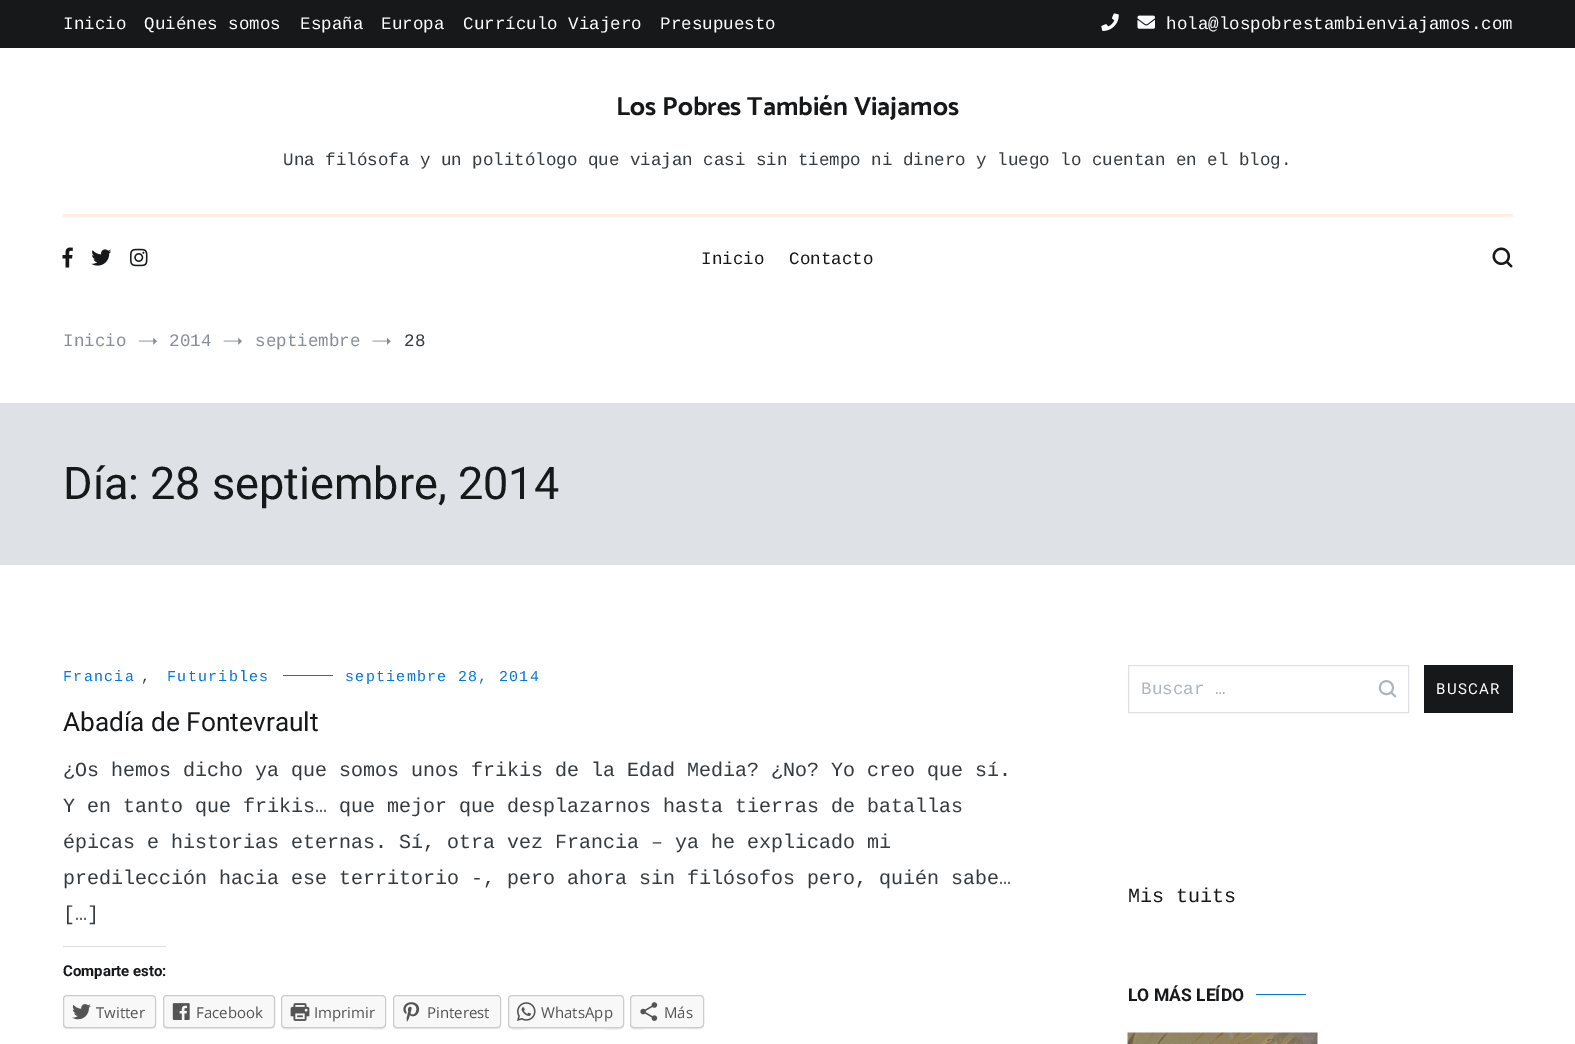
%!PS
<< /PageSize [1575 1044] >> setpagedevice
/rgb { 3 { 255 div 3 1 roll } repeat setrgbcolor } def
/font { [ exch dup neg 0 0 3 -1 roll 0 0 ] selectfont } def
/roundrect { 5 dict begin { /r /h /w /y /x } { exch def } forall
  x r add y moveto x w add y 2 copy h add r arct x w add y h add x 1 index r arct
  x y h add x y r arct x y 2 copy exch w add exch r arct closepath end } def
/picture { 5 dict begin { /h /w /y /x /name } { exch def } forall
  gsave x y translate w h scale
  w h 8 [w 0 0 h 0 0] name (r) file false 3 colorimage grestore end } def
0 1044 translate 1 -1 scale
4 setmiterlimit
255 255 255 rgb
0 0 1575 1044 rectfill
22 24 26 rgb
0 0 1575 48 rectfill
(img/1.rgb) 1101 13 18 18 picture
(img/2.rgb) 1137 15 18 14 picture
255 240 230 rgb
63 214 1450 3 rectfill
(img/3.rgb) 62 247 11 21 picture
(img/4.rgb) 91 249 21 17 picture
(img/5.rgb) 130 248 18 19 picture
(img/6.rgb) 1492 247 21 21 picture
(img/7.rgb) 138 337 19 8 picture
(img/7.rgb) 223 337 19 8 picture
(img/8.rgb) 372 337 19 8 picture
[
  [0 403 1575 162 222 226 230]
  [283 675 50 1 4 119 219]
  [63 946 103 1 221 221 221]
] { aload pop rgb rectfill } forall
235 235 235 rgb
63 1026 moveto 63 1028 65 1029 67 1029 curveto 152 1029 lineto 154 1029 156 1027 156 1025 curveto 155 1027 154 1028 152 1028 curveto 66 1028 lineto 65 1028 64 1027 63 1026 curveto closepath fill
248 248 248 rgb
63.5 995.5 92 32 3.5 roundrect gsave fill grestore
204 204 204 rgb
stroke
(img/9.rgb) 72 1004 19 16 picture
235 235 235 rgb
163 1026 moveto 163 1028 165 1029 167 1029 curveto 271 1029 lineto 273 1029 275 1027 275 1025 curveto 275 1024 lineto 275 1026 273 1028 271 1028 curveto 166 1028 lineto 165 1028 164 1027 163 1026 curveto closepath fill
248 248 248 rgb
163.5 995.5 111 32 3.5 roundrect gsave fill grestore
204 204 204 rgb
stroke
(img/10.rgb) 172 1003 18 17 picture
235 235 235 rgb
281 999 moveto 281 1017 lineto 281 1033 281 1029 301 1029 curveto 366 1029 lineto 373 1029 386 1032 386 1025 curveto 384 1030 370 1028 366 1028 curveto 285 1028 lineto 281 1027 281 1022 281 1020 curveto closepath fill
248 248 248 rgb
281.5 995.5 104 32 3.5 roundrect gsave fill grestore
204 204 204 rgb
stroke
(img/11.rgb) 290 1003 20 18 picture
235 235 235 rgb
393 1026 moveto 393 1028 395 1029 397 1029 curveto 497 1029 lineto 499 1029 501 1027 501 1025 curveto 500 1027 499 1028 498 1028 curveto 396 1028 lineto 395 1028 394 1027 393 1026 curveto closepath fill
248 248 248 rgb
393.5 995.5 107 32 3.5 roundrect gsave fill grestore
204 204 204 rgb
stroke
(img/12.rgb) 403 1002 17 20 picture
235 235 235 rgb
508 1026 moveto 509 1032 525 1029 530 1029 curveto 602 1029 lineto 607 1029 623 1032 624 1026 curveto 624 999 lineto 624 1020 lineto 624 1022 624 1027 620 1028 curveto 511 1028 lineto 510 1027 509 1027 508 1026 curveto closepath fill
248 248 248 rgb
508.5 995.5 115 32 3.5 roundrect gsave fill grestore
204 204 204 rgb
stroke
(img/13.rgb) 517 1002 19 19 picture
235 235 235 rgb
630 1024 moveto 630 1026 lineto 631 1032 643 1029 645 1029 curveto 689 1029 lineto 705 1029 704 1031 704 1017 curveto 704 999 lineto 704 1020 lineto 704 1030 700 1028 689 1028 curveto 645 1028 lineto 643 1028 630 1030 630 1024 curveto closepath fill
248 248 248 rgb
630.5 995.5 73 32 3.5 roundrect gsave fill grestore
204 204 204 rgb
stroke
(img/14.rgb) 640 1002 18 19 picture
222 226 230 rgb
1128.5 665.5 280 47 rectstroke
(img/15.rgb) 1378 680 19 18 picture
22 24 26 rgb
1424 665 89 48 rectfill
4 119 219 rgb
1256 994 50 1 rectfill
(img/16.rgb) 1127 1032 191 12 picture
/LiberationMono-Regular 17.5 font
255 255 255 rgb
[
  [(Inicio) 63 29]
  [(Quiénes somos) 144 29]
  [(España) 300 29]
  [(Europa) 381 29]
  [(Currículo Viajero) 463 29]
  [(Presupuesto) 660 29]
  [(hola@lospobrestambienviajamos.com) 1166 29]
] { aload pop moveto show } forall
/Catamaran-Bold 26.25 font
22 24 26 rgb
616 115 moveto (Los Pobres También Viajamos) show
/LiberationMono-Regular 17.5 font
54 59 64 rgb
283 165 moveto (Una filósofa y un politólogo que viajan casi sin tiempo ni dinero y luego lo cuentan en el blog.) show
22 24 26 rgb
701 264 moveto (Inicio) show
789 264 moveto (Contacto) show
134 142 150 rgb
[
  [(Inicio) 63 346]
  [(2014) 169 346]
  [(septiembre) 255 346]
] { aload pop moveto show } forall
54 59 64 rgb
404 346 moveto (28) show
/Roboto-Regular 45 font
22 24 26 rgb
63 499 moveto (Día: 28 septiembre, 2014) show
/LiberationMono-Regular 15 font
4 119 219 rgb
63 681 moveto 1.25 0 (Francia) ashow
54 59 64 rgb
141 681 moveto 1.25 0 (,) ashow
4 119 219 rgb
167 681 moveto 1.25 0 (Futuribles) ashow
345 681 moveto 1.25 0 (septiembre 28, 2014) ashow
/Roboto-Regular 26.25 font
22 24 26 rgb
63 731 moveto (Abadía de Fontevrault) show
/LiberationMono-Regular 20 font
54 59 64 rgb
[
  [(¿Os hemos dicho ya que somos unos frikis de la Edad Media? ¿No? Yo creo que sí.) 63 776]
  [(Y en tanto que frikis… que mejor que desplazarnos hasta tierras de batallas) 63 812]
  [(épicas e historias eternas. Sí, otra vez Francia – ya he explicado mi) 63 848]
  [(predilección hacia ese territorio -, pero ahora sin filósofos pero, quién sabe…) 63 884]
  [([…]) 63 920]
] { aload pop moveto show } forall
/Roboto-Bold 15 font
22 24 26 rgb
63 976 moveto (Comparte esto:) show
/OpenSans-Regular 15 font
84 84 84 rgb
[
  [(Twitter) 96 1018]
  [(Facebook) 196 1018]
  [(Imprimir) 314 1018]
  [(Pinterest) 427 1018]
  [(WhatsApp) 541 1018]
  [(Más) 664 1018]
] { aload pop moveto show } forall
/LiberationMono-Regular 17.5 font
173 181 189 rgb
1141 694 moveto (Buscar …) show
/Roboto-Regular 15 font
255 255 255 rgb
1436 694 moveto 1.25 0 (BUSCAR) ashow
/LiberationMono-Regular 20 font
22 24 26 rgb
1128 902 moveto (Mis tuits) show
/Roboto-Bold 17.5 font
1128 1001 moveto (LO MÁS LEÍDO) show
showpage
